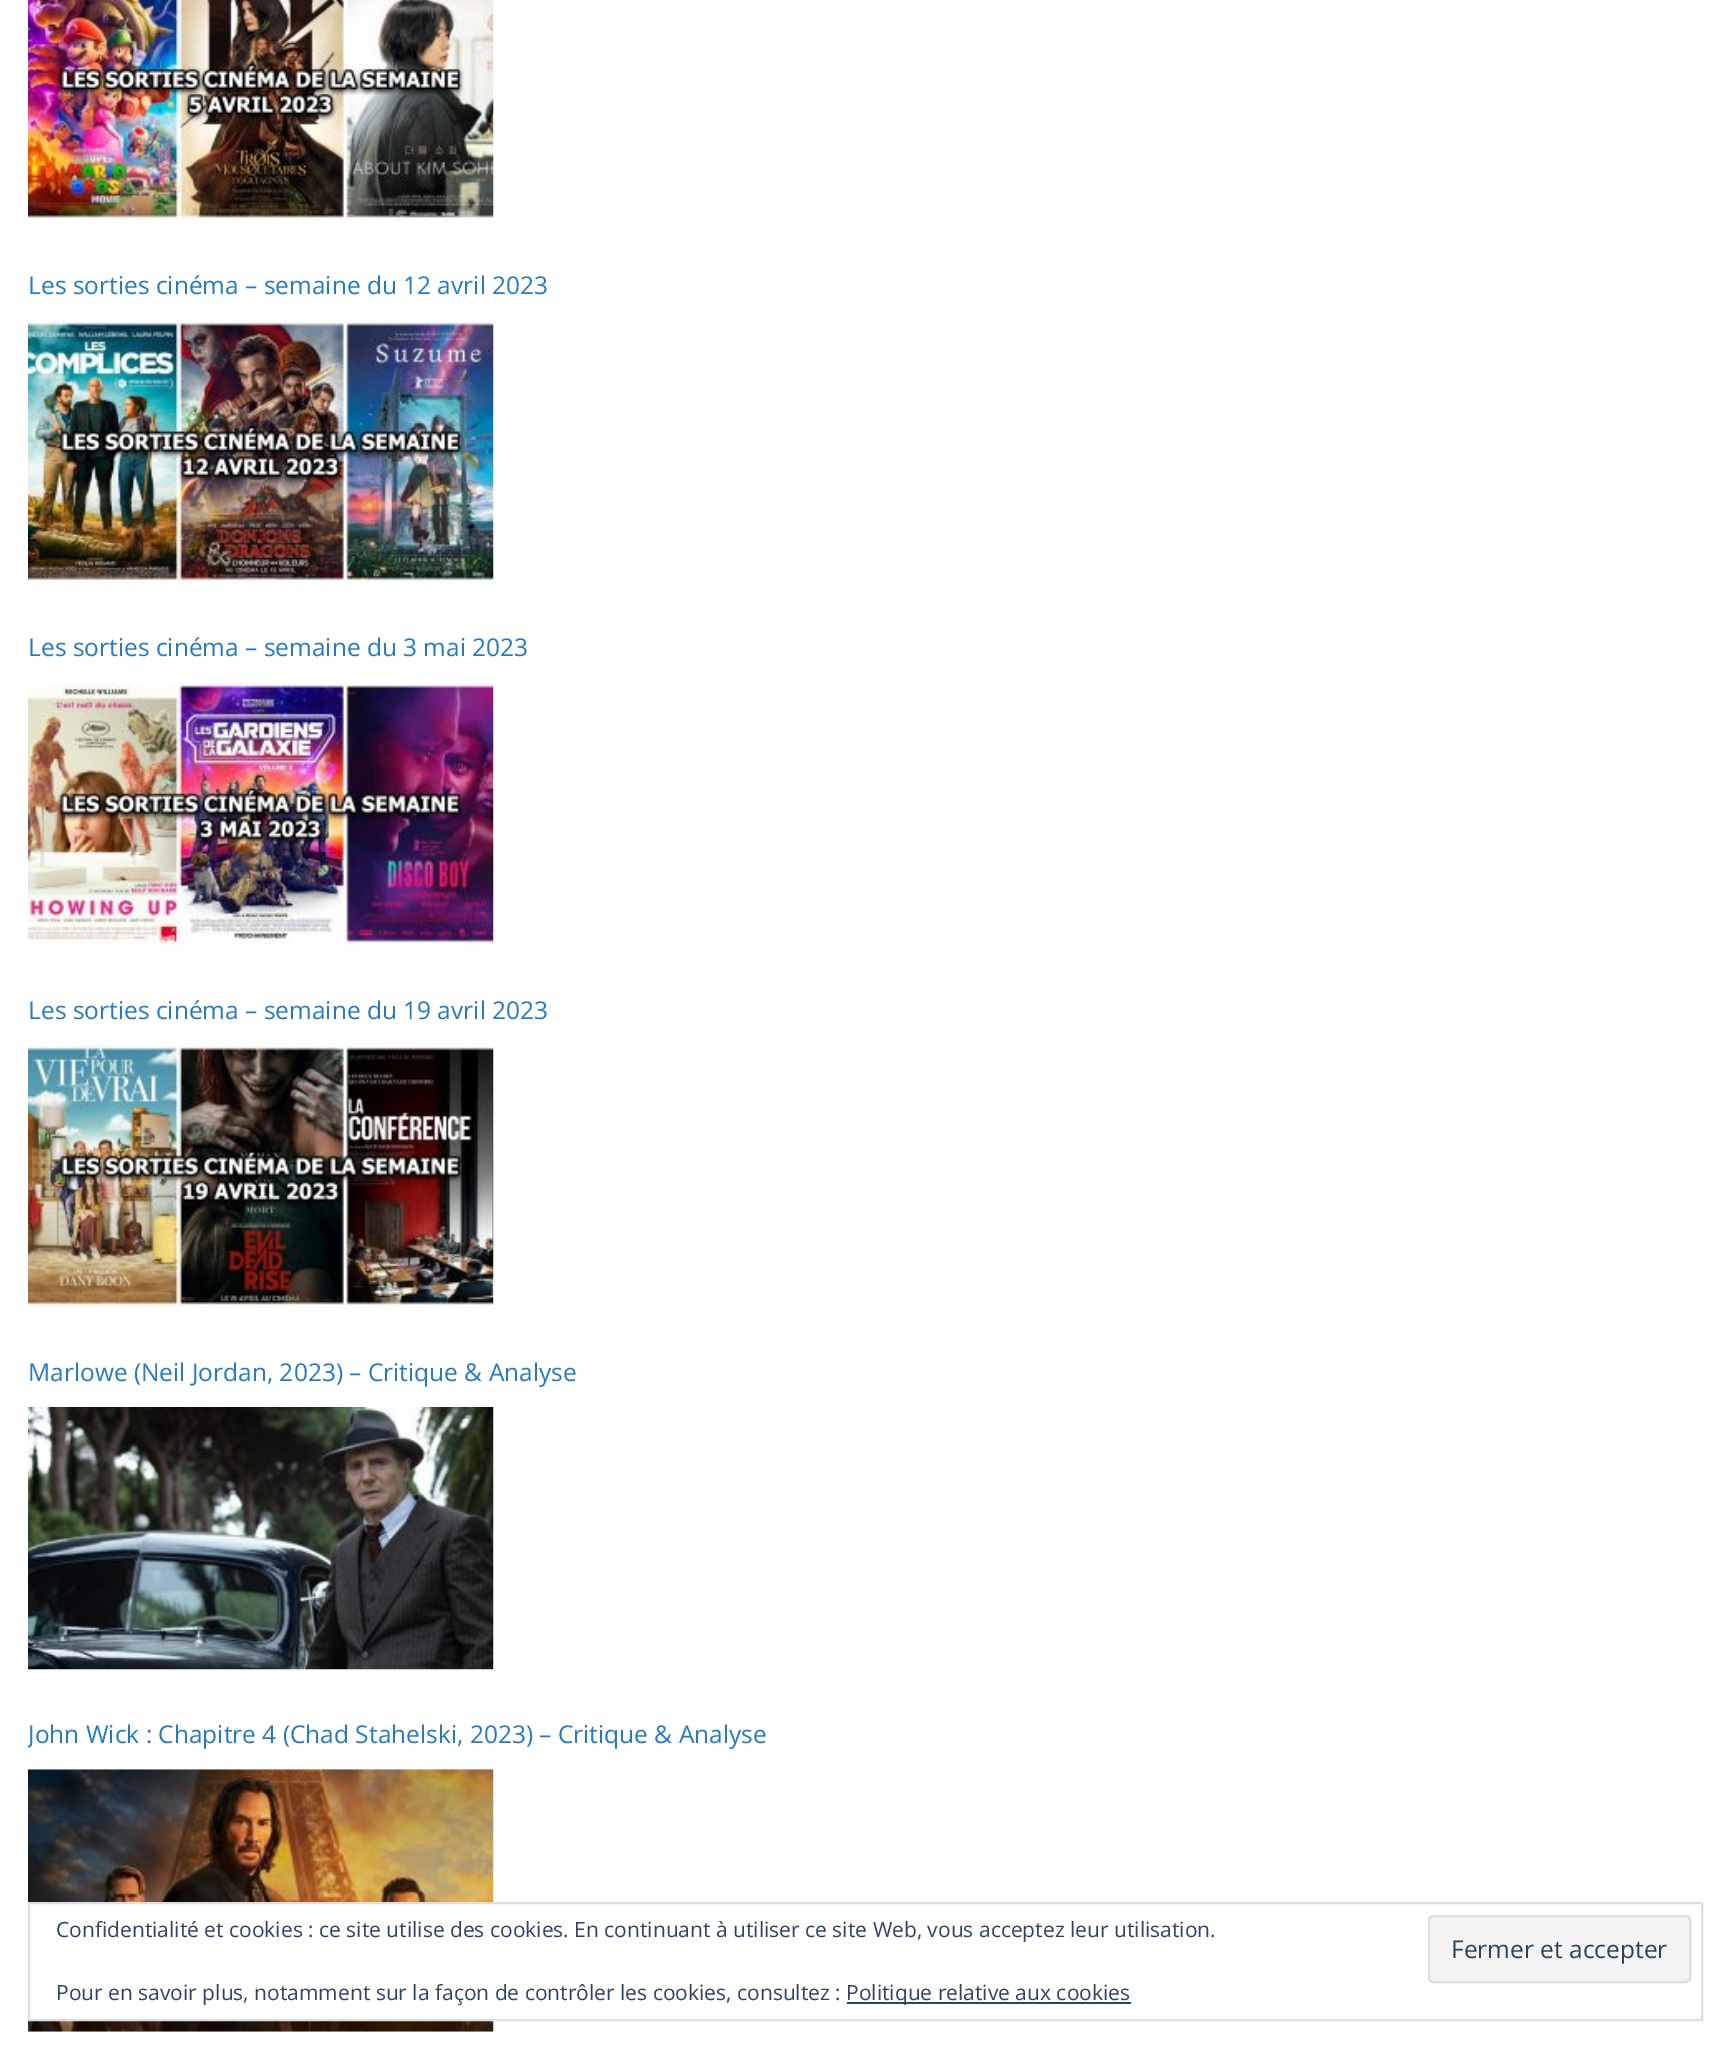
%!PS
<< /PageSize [1730 2048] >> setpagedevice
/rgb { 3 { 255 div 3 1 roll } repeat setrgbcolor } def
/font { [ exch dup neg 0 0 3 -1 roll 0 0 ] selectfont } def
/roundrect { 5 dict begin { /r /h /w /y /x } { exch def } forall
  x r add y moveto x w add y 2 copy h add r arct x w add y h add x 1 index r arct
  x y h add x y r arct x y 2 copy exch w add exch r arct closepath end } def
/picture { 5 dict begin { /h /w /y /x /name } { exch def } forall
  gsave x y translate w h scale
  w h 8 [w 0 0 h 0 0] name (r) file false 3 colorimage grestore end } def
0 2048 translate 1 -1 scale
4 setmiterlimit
255 255 255 rgb
0 0 1730 2048 rectfill
(img/1.rgb) 28 0 466 221 picture
(img/2.rgb) 28 320 466 263 picture
(img/3.rgb) 28 682 466 263 picture
(img/4.rgb) 28 1045 466 262 picture
(img/5.rgb) 28 1407 466 263 picture
(img/6.rgb) 28 1769 466 263 picture
30 1904 464 115 rectfill
222 222 222 rgb
2 setlinewidth
29 1903 1673 117 rectstroke
243 243 243 rgb
1429 1916 261 66 4 roundrect gsave fill grestore
222 222 222 rgb
stroke
46 68 103 rgb
847 2002 284 2 rectfill
/OpenSans-Regular 24.5 font
37 123 193 rgb
[
  [(Les sorties cinéma – semaine du 12 avril 2023) 28 294]
  [(Les sorties cinéma – semaine du 3 mai 2023) 28 656]
  [(Les sorties cinéma – semaine du 19 avril 2023) 28 1019]
  [(Marlowe \(Neil Jordan, 2023\) – Critique & Analyse) 28 1381]
] { aload pop moveto show } forall
gsave
28 1715 1675 37 rectclip
28 1743 moveto (John Wick : Chapitre 4 \(Chad Stahelski, 2023\) – Critique & Analyse) show
grestore
/OpenSans-Regular 21 font
46 68 103 rgb
56 1937 moveto (Confidentialité et cookies : ce site utilise des cookies. En continuant à utiliser ce site Web, vous acceptez leur utilisation.) show
/OpenSans-Regular 24.5 font
46 68 83 rgb
1451 1958 moveto (Fermer et accepter) show
/OpenSans-Regular 21 font
46 68 103 rgb
56 2000 moveto (Pour en savoir plus, notamment sur la façon de contrôler les cookies, consultez :) show
846 2000 moveto (Politique relative aux cookies) show
showpage
